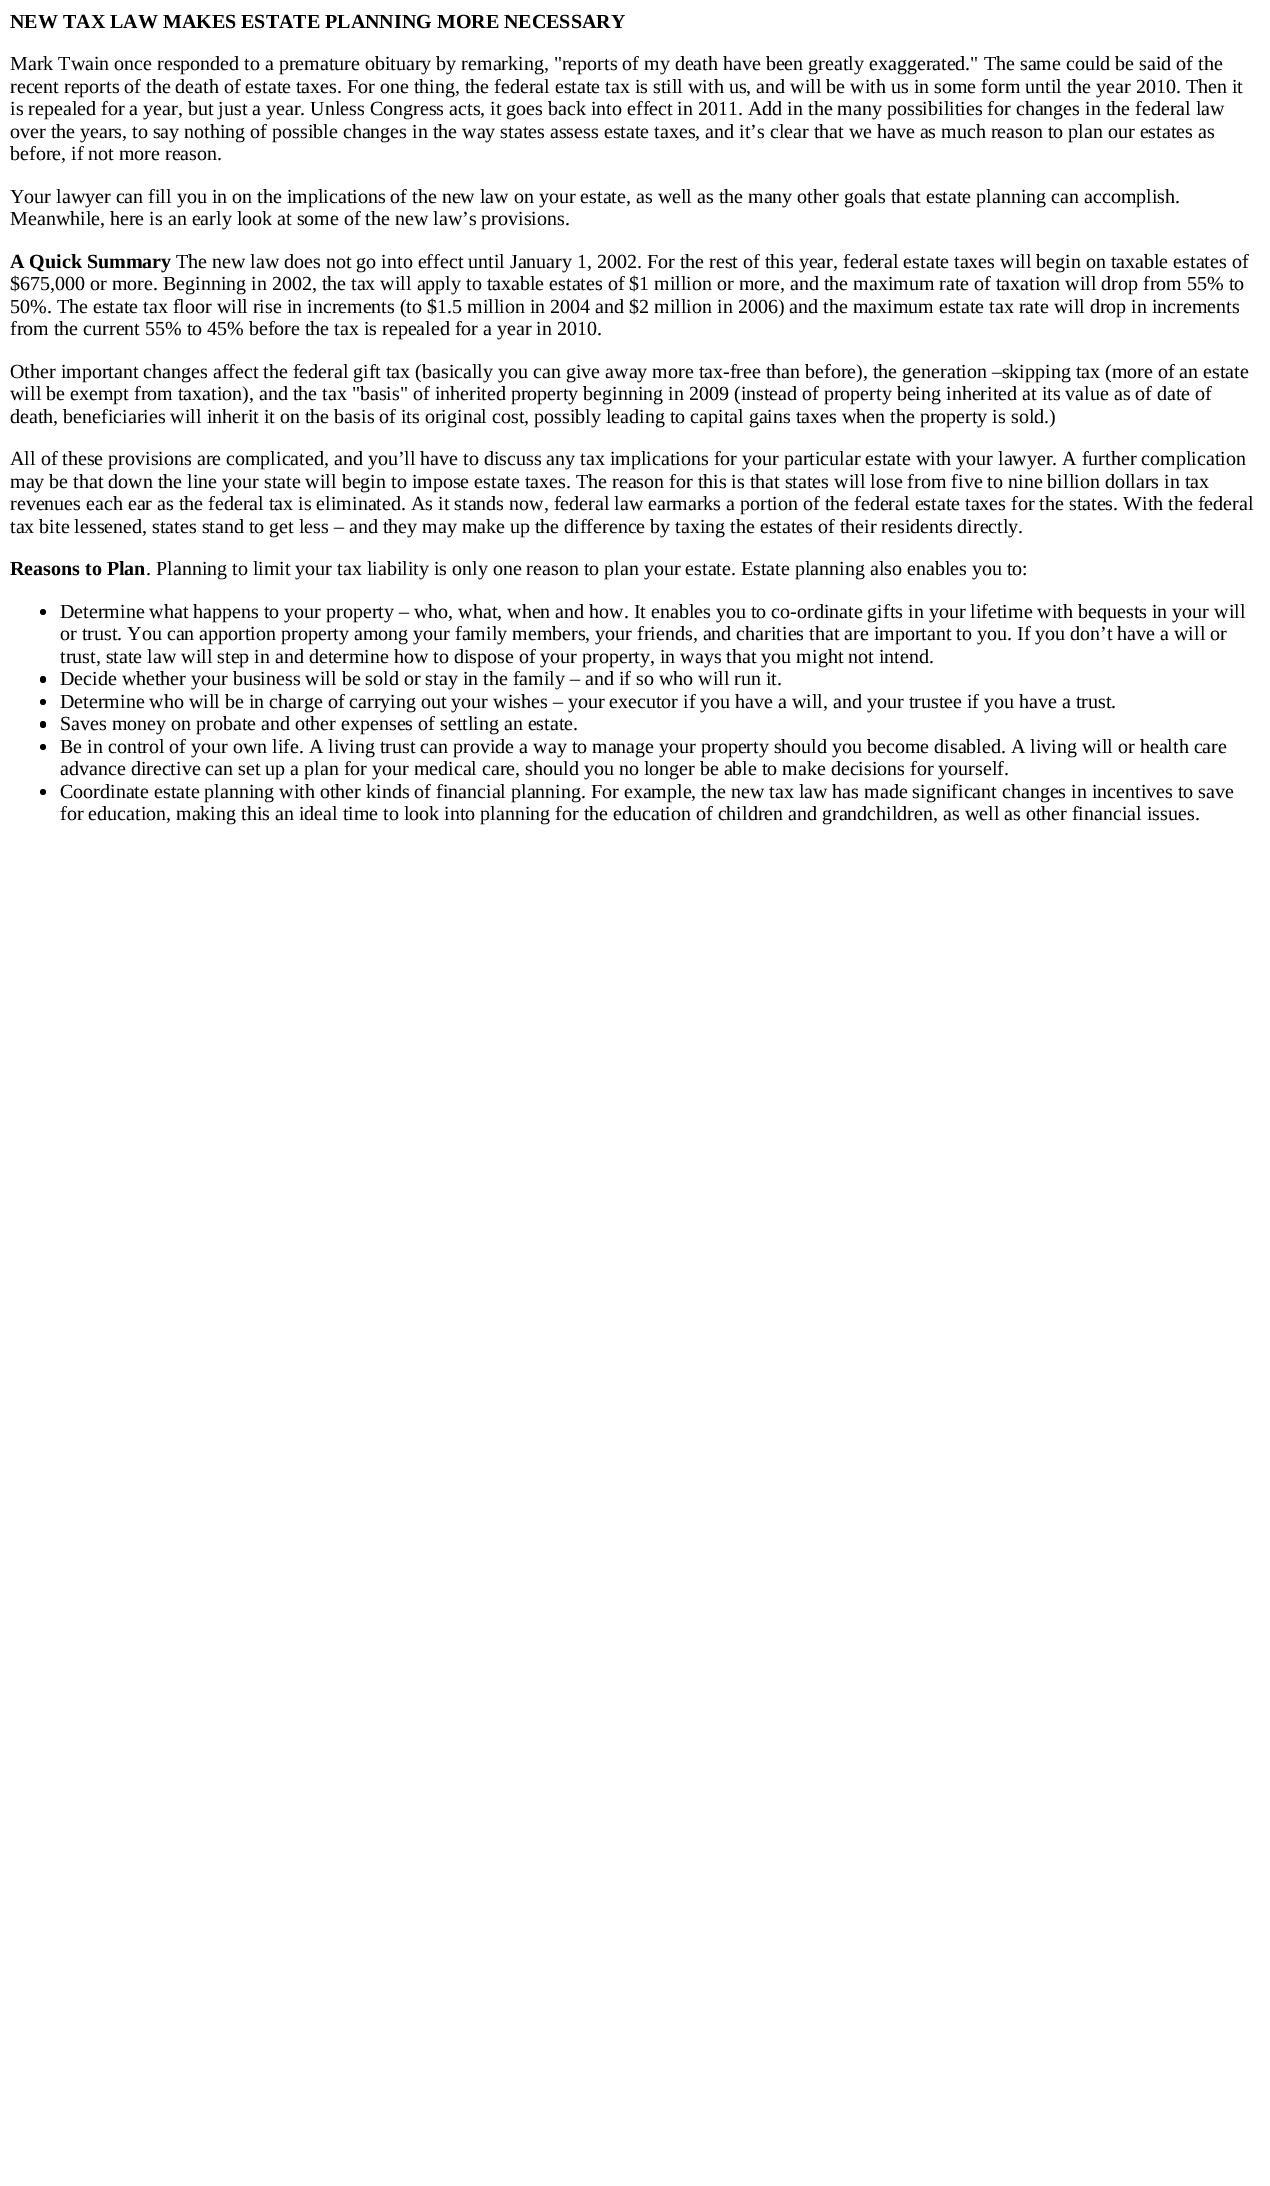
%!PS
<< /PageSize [1270 2186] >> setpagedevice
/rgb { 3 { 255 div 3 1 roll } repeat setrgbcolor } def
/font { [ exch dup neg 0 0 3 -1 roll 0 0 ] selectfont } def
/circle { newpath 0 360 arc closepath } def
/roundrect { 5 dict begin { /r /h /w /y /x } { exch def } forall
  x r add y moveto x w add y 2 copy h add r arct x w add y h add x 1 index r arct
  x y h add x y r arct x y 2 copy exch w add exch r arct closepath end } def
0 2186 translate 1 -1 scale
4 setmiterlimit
255 255 255 rgb
0 0 1270 2186 rectfill
0 0 0 rgb
43 612 3 circle fill
40 676 6 7 3 roundrect fill
43 702 3 circle fill
40 721 6 7 3 roundrect fill
43 747 3 circle fill
43 792 3 circle fill
/LiberationSerif-Bold 20 font
10 28 moveto (NEW TAX LAW MAKES ESTATE PLANNING MORE NECESSARY) show
/LiberationSerif-Regular 20 font
[
  [(Mark Twain once responded to a premature obituary by remarking, "reports of my death have been greatly exaggerated." The same could be said of the) 10 70]
  [(recent reports of the death of estate taxes. For one thing, the federal estate tax is still with us, and will be with us in some form until the year 2010. Then it) 10 93]
  [(is repealed for a year, but just a year. Unless Congress acts, it goes back into effect in 2011. Add in the many possibilities for changes in the federal law) 10 115]
  [(over the years, to say nothing of possible changes in the way states assess estate taxes, and it’s clear that we have as much reason to plan our estates as) 10 138]
  [(before, if not more reason.) 10 160]
  [(Your lawyer can fill you in on the implications of the new law on your estate, as well as the many other goals that estate planning can accomplish.) 10 203]
  [(Meanwhile, here is an early look at some of the new law’s provisions.) 10 225]
] { aload pop moveto show } forall
/LiberationSerif-Bold 20 font
10 268 moveto (A Quick Summary) show
/LiberationSerif-Regular 20 font
[
  [(The new law does not go into effect until January 1, 2002. For the rest of this year, federal estate taxes will begin on taxable estates of) 176 268]
  [($675,000 or more. Beginning in 2002, the tax will apply to taxable estates of $1 million or more, and the maximum rate of taxation will drop from 55% to) 10 290]
  [(50%. The estate tax floor will rise in increments \(to $1.5 million in 2004 and $2 million in 2006\) and the maximum estate tax rate will drop in increments) 10 313]
  [(from the current 55% to 45% before the tax is repealed for a year in 2010.) 10 335]
  [(Other important changes affect the federal gift tax \(basically you can give away more tax-free than before\), the generation –skipping tax \(more of an estate) 10 378]
  [(will be exempt from taxation\), and the tax "basis" of inherited property beginning in 2009 \(instead of property being inherited at its value as of date of) 10 400]
  [(death, beneficiaries will inherit it on the basis of its original cost, possibly leading to capital gains taxes when the property is sold.\)) 10 423]
  [(All of these provisions are complicated, and you’ll have to discuss any tax implications for your particular estate with your lawyer. A further complication) 10 465]
  [(may be that down the line your state will begin to impose estate taxes. The reason for this is that states will lose from five to nine billion dollars in tax) 10 488]
  [(revenues each ear as the federal tax is eliminated. As it stands now, federal law earmarks a portion of the federal estate taxes for the states. With the federal) 10 510]
  [(tax bite lessened, states stand to get less – and they may make up the difference by taxing the estates of their residents directly.) 10 533]
] { aload pop moveto show } forall
/LiberationSerif-Bold 20 font
10 575 moveto (Reasons to Plan) show
/LiberationSerif-Regular 20 font
[
  [(. Planning to limit your tax liability is only one reason to plan your estate. Estate planning also enables you to:) 146 575]
  [(Determine what happens to your property – who, what, when and how. It enables you to co-ordinate gifts in your lifetime with bequests in your will) 60 618]
  [(or trust. You can apportion property among your family members, your friends, and charities that are important to you. If you don’t have a will or) 60 640]
  [(trust, state law will step in and determine how to dispose of your property, in ways that you might not intend.) 60 663]
  [(Decide whether your business will be sold or stay in the family – and if so who will run it.) 60 685]
  [(Determine who will be in charge of carrying out your wishes – your executor if you have a will, and your trustee if you have a trust.) 60 708]
  [(Saves money on probate and other expenses of settling an estate.) 60 730]
  [(Be in control of your own life. A living trust can provide a way to manage your property should you become disabled. A living will or health care) 60 753]
  [(advance directive can set up a plan for your medical care, should you no longer be able to make decisions for yourself.) 60 775]
  [(Coordinate estate planning with other kinds of financial planning. For example, the new tax law has made significant changes in incentives to save) 60 798]
  [(for education, making this an ideal time to look into planning for the education of children and grandchildren, as well as other financial issues.) 60 820]
] { aload pop moveto show } forall
showpage
